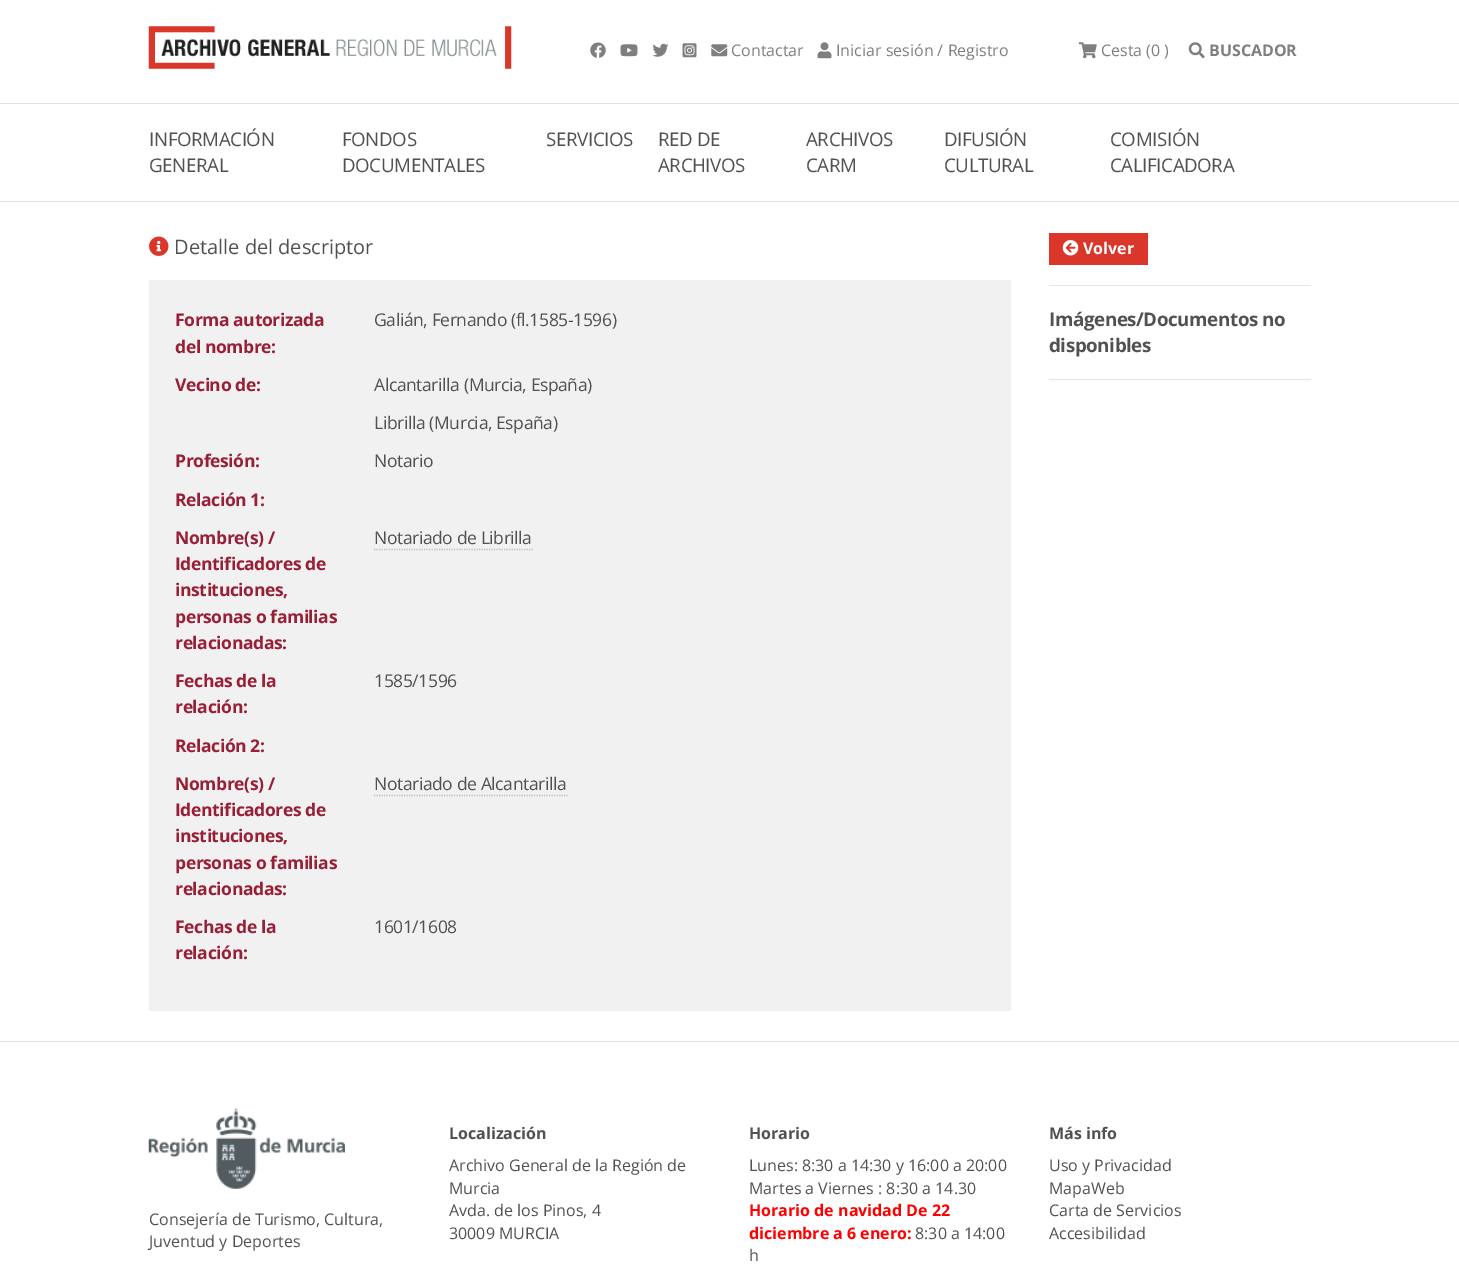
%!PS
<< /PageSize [1459 1267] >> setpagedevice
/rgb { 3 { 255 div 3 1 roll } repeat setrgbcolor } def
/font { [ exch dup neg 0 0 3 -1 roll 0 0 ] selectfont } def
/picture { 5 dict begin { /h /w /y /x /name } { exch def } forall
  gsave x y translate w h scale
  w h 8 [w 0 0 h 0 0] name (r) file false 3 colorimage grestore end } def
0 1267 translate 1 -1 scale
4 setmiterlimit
255 255 255 rgb
0 0 1459 1267 rectfill
(img/1.rgb) 148 26 364 43 picture
(img/2.rgb) 590 42 16 16 picture
(img/3.rgb) 620 44 18 13 picture
(img/4.rgb) 652 43 17 14 picture
(img/5.rgb) 682 43 15 15 picture
(img/6.rgb) 711 44 17 13 picture
(img/7.rgb) 817 42 15 17 picture
(img/8.rgb) 1078 42 19 17 picture
(img/9.rgb) 1188 42 17 17 picture
222 226 230 rgb
0 103 1459 1 rectfill
0 201 1459 1 rectfill
(img/10.rgb) 149 236 20 20 picture
241 241 241 rgb
149 280 862 731 rectfill
189 189 189 rgb
1.2 setlinewidth
[1.25 1.25] 0 setdash
374 549.5 moveto 532.5 549.5 lineto stroke
374 795.5 moveto 567.5 795.5 lineto stroke
219 54 42 rgb
1049 233 99 32 rectfill
(img/11.rgb) 1062 240 17 16 picture
[
  [1049 285 262 1 230 230 230]
  [1049 379 262 1 230 230 230]
  [0 1041 1459 1 222 226 230]
] { aload pop rgb rectfill } forall
(img/12.rgb) 148 1108 197 81 picture
/OpenSans-Regular 16 font
127 127 127 rgb
[
  [(Contactar) 731 56]
  [(Iniciar sesión / Registro) 836 56]
  [(Cesta \(0 \)) 1101 56]
] { aload pop moveto show } forall
/OpenSans-Bold 16 font
1209 56 moveto (BUSCADOR) show
/OpenSans-Regular 18.75 font
81 81 81 rgb
149 146 moveto -0.4 0 (INFORMACIÓN) ashow
149 172 moveto -0.4 0 (GENERAL) ashow
342 146 moveto -0.4 0 (FONDOS) ashow
342 172 moveto -0.4 0 (DOCUMENTALES) ashow
546 146 moveto -0.4 0 (SERVICIOS) ashow
658 146 moveto -0.4 0 (RED DE) ashow
658 172 moveto -0.4 0 (ARCHIVOS) ashow
806 146 moveto -0.4 0 (ARCHIVOS) ashow
806 172 moveto -0.4 0 (CARM) ashow
944 146 moveto -0.4 0 (DIFUSIÓN) ashow
944 172 moveto -0.4 0 (CULTURAL) ashow
1110 146 moveto -0.4 0 (COMISIÓN) ashow
1110 172 moveto -0.4 0 (CALIFICADORA) ashow
/OpenSans-Regular 20 font
174 254 moveto (Detalle del descriptor) show
/OpenSans-Bold 17.5 font
152 31 54 rgb
175 326 moveto -0.4 0 (Forma autorizada) ashow
175 353 moveto -0.4 0 (del nombre:) ashow
/OpenSans-Regular 17.5 font
81 81 81 rgb
374 326 moveto -0.4 0 (Galián, Fernando \(fl.1585-1596\)) ashow
/OpenSans-Bold 17.5 font
152 31 54 rgb
175 391 moveto -0.4 0 (Vecino de:) ashow
/OpenSans-Regular 17.5 font
81 81 81 rgb
374 391 moveto -0.4 0 (Alcantarilla \(Murcia, España\)) ashow
374 429 moveto -0.4 0 (Librilla \(Murcia, España\)) ashow
/OpenSans-Bold 17.5 font
152 31 54 rgb
175 467 moveto -0.4 0 (Profesión:) ashow
/OpenSans-Regular 17.5 font
81 81 81 rgb
374 467 moveto -0.4 0 (Notario) ashow
/OpenSans-Bold 17.5 font
152 31 54 rgb
175 506 moveto -0.4 0 (Relación 1:) ashow
175 544 moveto -0.4 0 (Nombre\(s\) /) ashow
175 570 moveto -0.4 0 (Identificadores de) ashow
175 596 moveto -0.4 0 (instituciones,) ashow
175 623 moveto -0.4 0 (personas o familias) ashow
175 649 moveto -0.4 0 (relacionadas:) ashow
/OpenSans-Regular 17.5 font
81 81 81 rgb
374 544 moveto -0.4 0 (Notariado de Librilla) ashow
/OpenSans-Bold 17.5 font
152 31 54 rgb
175 687 moveto -0.4 0 (Fechas de la) ashow
175 713 moveto -0.4 0 (relación:) ashow
/OpenSans-Regular 17.5 font
81 81 81 rgb
374 687 moveto -0.4 0 (1585/1596) ashow
/OpenSans-Bold 17.5 font
152 31 54 rgb
175 752 moveto -0.4 0 (Relación 2:) ashow
175 790 moveto -0.4 0 (Nombre\(s\) /) ashow
175 816 moveto -0.4 0 (Identificadores de) ashow
175 842 moveto -0.4 0 (instituciones,) ashow
175 869 moveto -0.4 0 (personas o familias) ashow
175 895 moveto -0.4 0 (relacionadas:) ashow
/OpenSans-Regular 17.5 font
81 81 81 rgb
374 790 moveto -0.4 0 (Notariado de Alcantarilla) ashow
/OpenSans-Bold 17.5 font
152 31 54 rgb
175 933 moveto -0.4 0 (Fechas de la) ashow
175 959 moveto -0.4 0 (relación:) ashow
/OpenSans-Regular 17.5 font
81 81 81 rgb
374 933 moveto -0.4 0 (1601/1608) ashow
/OpenSans-Bold 16 font
255 255 255 rgb
1083 254 moveto (Volver) show
/OpenSans-Bold 18.75 font
81 81 81 rgb
1049 326 moveto -0.4 0 (Imágenes/Documentos no) ashow
1049 352 moveto -0.4 0 (disponibles) ashow
/OpenSans-Regular 16 font
149 1225 moveto (Consejería de Turismo, Cultura,) show
149 1247 moveto (Juventud y Deportes) show
/OpenSans-Bold 16 font
449 1139 moveto (Localización) show
/OpenSans-Regular 16 font
[
  [(Archivo General de la Región de) 449 1171]
  [(Murcia) 449 1194]
  [(Avda. de los Pinos, 4) 449 1216]
  [(30009 MURCIA) 449 1239]
] { aload pop moveto show } forall
/OpenSans-Bold 16 font
749 1139 moveto (Horario) show
/OpenSans-Regular 16 font
749 1171 moveto (Lunes: 8:30 a 14:30 y 16:00 a 20:00) show
749 1194 moveto (Martes a Viernes : 8:30 a 14.30) show
/OpenSans-Bold 16 font
255 0 0 rgb
749 1216 moveto (Horario de navidad De 22) show
749 1239 moveto (diciembre a 6 enero:) show
/OpenSans-Regular 16 font
81 81 81 rgb
915 1239 moveto (8:30 a 14:00) show
749 1261 moveto (h) show
/OpenSans-Bold 16 font
1049 1139 moveto (Más info) show
/OpenSans-Regular 16 font
[
  [(Uso y Privacidad) 1049 1171]
  [(MapaWeb) 1049 1194]
  [(Carta de Servicios) 1049 1216]
  [(Accesibilidad) 1049 1239]
] { aload pop moveto show } forall
showpage
